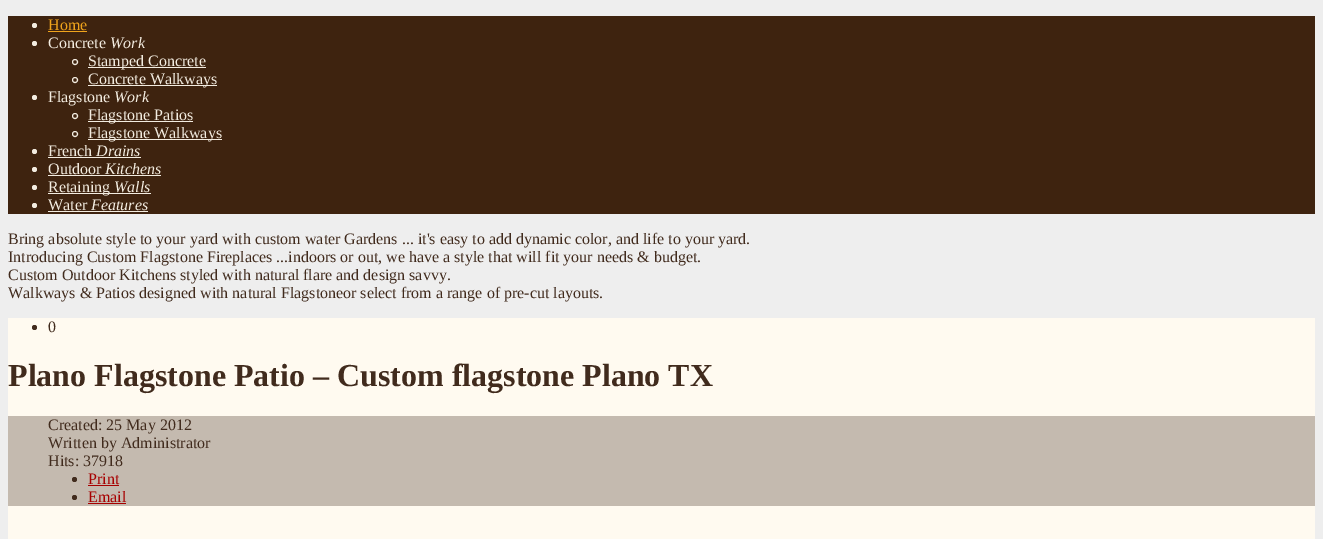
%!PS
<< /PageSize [1323 539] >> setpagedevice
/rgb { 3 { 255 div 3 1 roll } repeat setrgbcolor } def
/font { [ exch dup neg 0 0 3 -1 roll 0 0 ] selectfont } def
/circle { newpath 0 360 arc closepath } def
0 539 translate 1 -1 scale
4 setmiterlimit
238 238 238 rgb
0 0 1323 539 rectfill
62 35 15 rgb
8 16 1307 198 rectfill
243 236 224 rgb
34.5 25.5 2.5 circle fill
240 164 28 rgb
48 31 39 1 rectfill
243 236 224 rgb
34.5 43.5 2.5 circle fill
75 62 2.5 circle stroke
88 67 118 1 rectfill
75 80 2.5 circle stroke
88 85 129 1 rectfill
34.5 97.5 2.5 circle fill
75 116 2.5 circle stroke
88 121 105 1 rectfill
75 134 2.5 circle stroke
88 139 134 1 rectfill
34.5 151.5 2.5 circle fill
48 157 93 1 rectfill
34.5 169.5 2.5 circle fill
48 175 113 1 rectfill
34.5 187.5 2.5 circle fill
48 193 103 1 rectfill
34.5 205.5 2.5 circle fill
48 211 100 1 rectfill
255 250 240 rgb
8 318 1307 221 rectfill
65 43 29 rgb
34.5 327.5 2.5 circle fill
196 186 175 rgb
8 416 1307 90 rectfill
65 43 29 rgb
74.5 479.5 2.5 circle fill
167 0 0 rgb
88 485 31 1 rectfill
65 43 29 rgb
74.5 497.5 2.5 circle fill
167 0 0 rgb
88 503 38 1 rectfill
/LiberationSerif-Regular 16 font
240 164 28 rgb
48 30 moveto (Home) show
243 236 224 rgb
48 48 moveto (Concrete) show
/LiberationSerif-Italic 16 font
110 48 moveto (Work) show
/LiberationSerif-Regular 16 font
[
  [(Stamped Concrete) 88 66]
  [(Concrete Walkways) 88 84]
  [(Flagstone) 48 102]
] { aload pop moveto show } forall
/LiberationSerif-Italic 16 font
114 102 moveto (Work) show
/LiberationSerif-Regular 16 font
[
  [(Flagstone Patios) 88 120]
  [(Flagstone Walkways) 88 138]
  [(French) 48 156]
] { aload pop moveto show } forall
/LiberationSerif-Italic 16 font
96 156 moveto (Drains) show
/LiberationSerif-Regular 16 font
48 174 moveto (Outdoor) show
/LiberationSerif-Italic 16 font
105 174 moveto (Kitchens) show
/LiberationSerif-Regular 16 font
48 192 moveto (Retaining) show
/LiberationSerif-Italic 16 font
114 192 moveto (Walls) show
/LiberationSerif-Regular 16 font
48 210 moveto (Water) show
/LiberationSerif-Italic 16 font
91 210 moveto (Features) show
/LiberationSerif-Regular 16 font
65 43 29 rgb
[
  [(Bring absolute style to your yard with custom water Gardens ... it's easy to add dynamic color, and life to your yard.) 8 244]
  [(Introducing Custom Flagstone Fireplaces ...indoors or out, we have a style that will fit your needs & budget.) 8 262]
  [(Custom Outdoor Kitchens styled with natural flare and design savvy.) 8 280]
  [(Walkways & Patios designed with natural Flagstoneor select from a range of pre-cut layouts.) 8 298]
  [(0) 48 332]
] { aload pop moveto show } forall
/LiberationSerif-Bold 32 font
8 386 moveto (Plano Flagstone Patio – Custom flagstone Plano TX) show
/LiberationSerif-Regular 16 font
[
  [(Created: 25 May 2012) 48 430]
  [(Written by Administrator) 48 448]
  [(Hits: 37918) 48 466]
] { aload pop moveto show } forall
167 0 0 rgb
88 484 moveto (Print) show
88 502 moveto (Email) show
showpage
